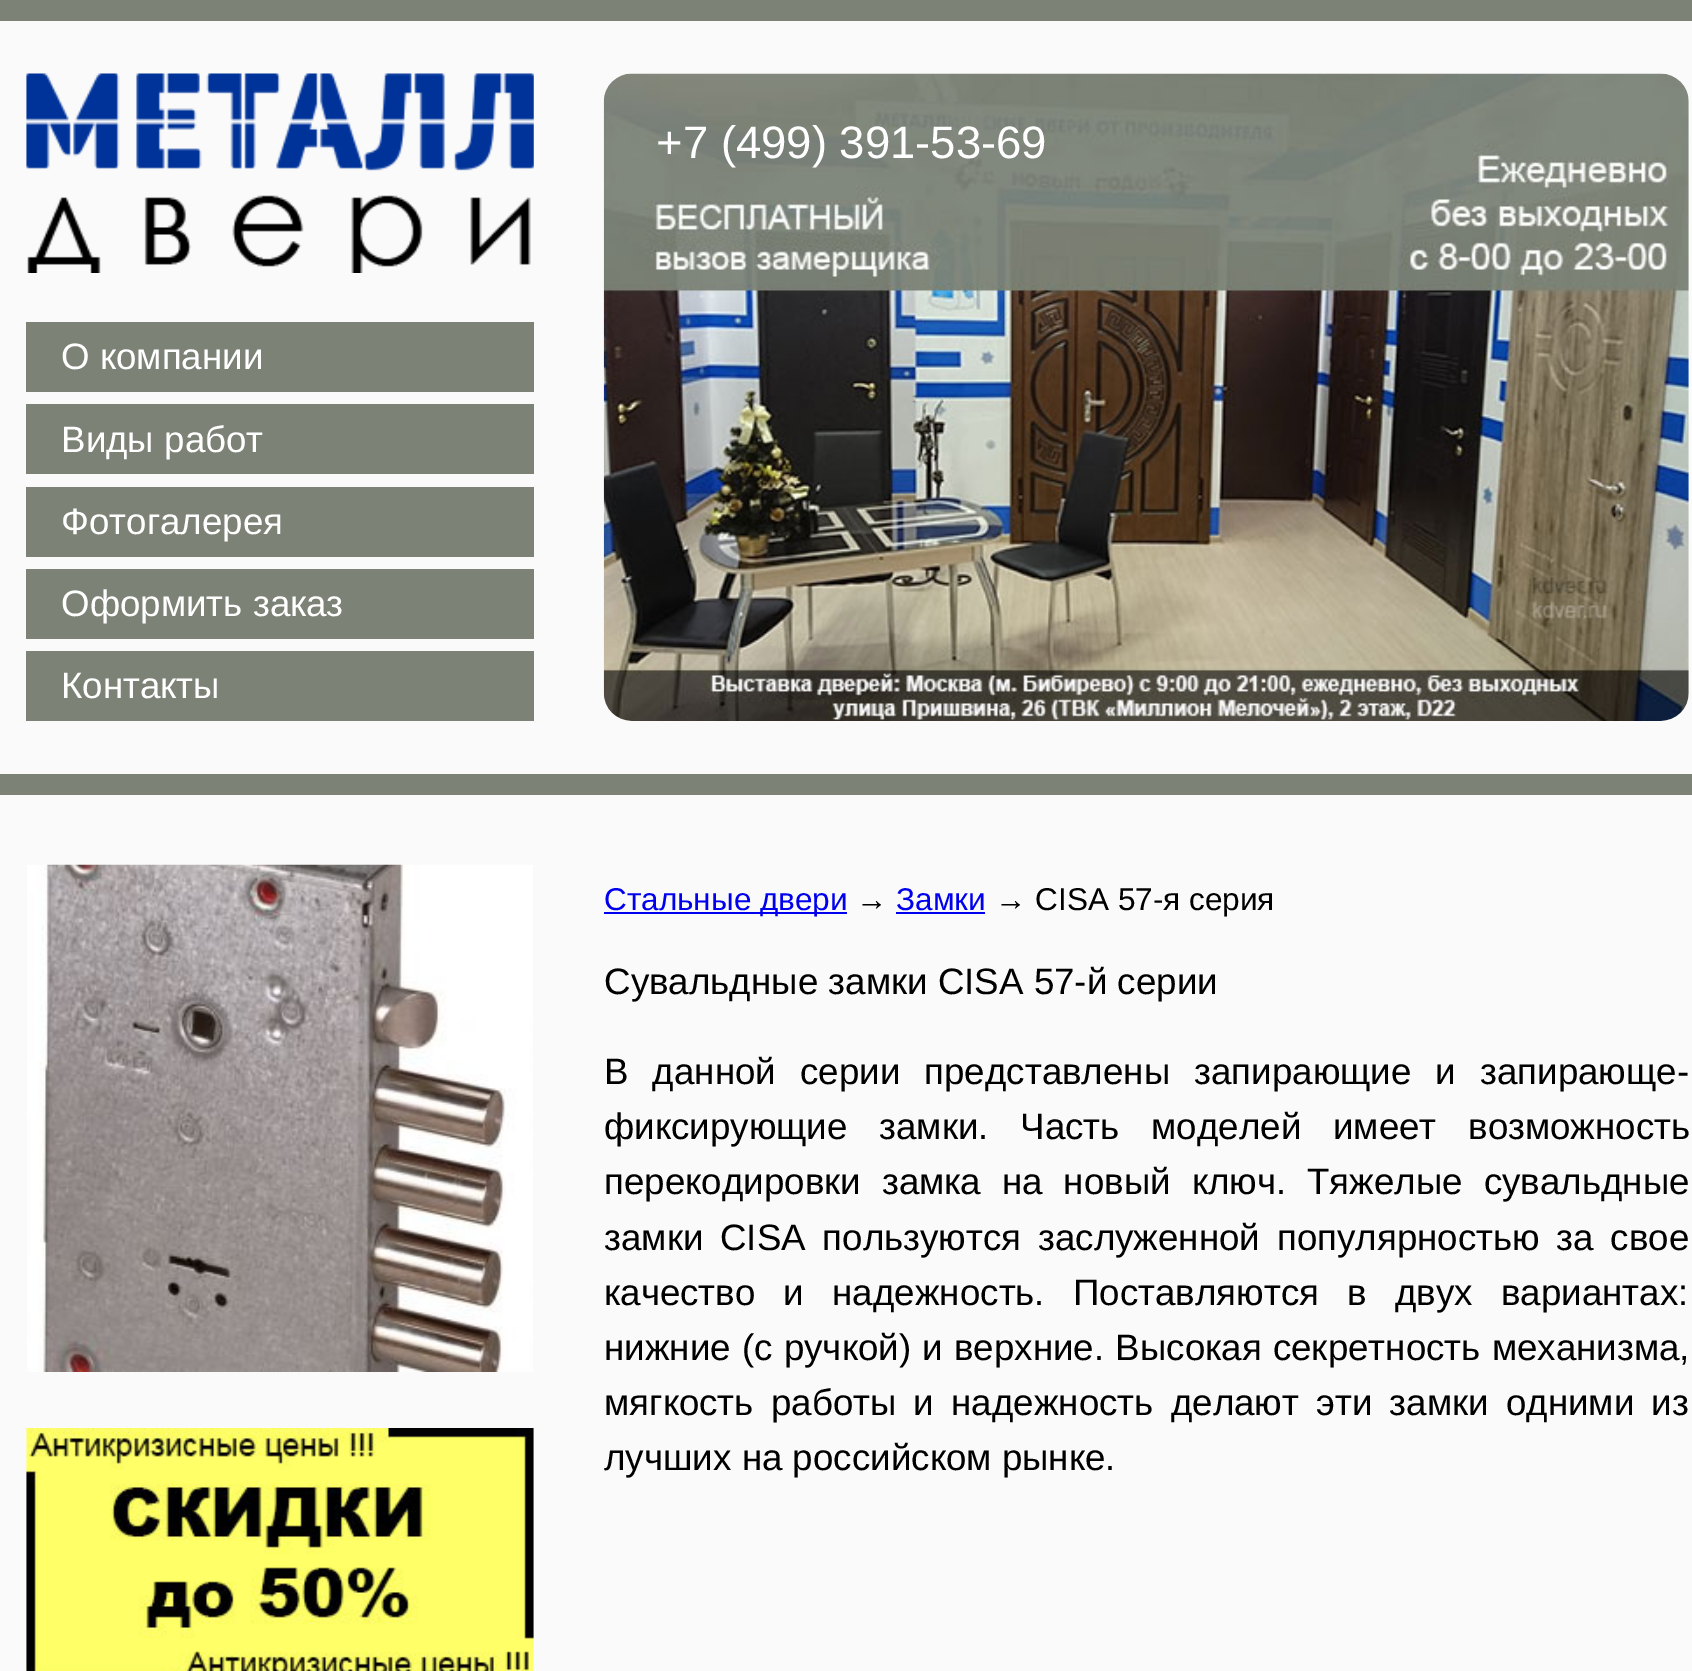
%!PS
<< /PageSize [1692 1671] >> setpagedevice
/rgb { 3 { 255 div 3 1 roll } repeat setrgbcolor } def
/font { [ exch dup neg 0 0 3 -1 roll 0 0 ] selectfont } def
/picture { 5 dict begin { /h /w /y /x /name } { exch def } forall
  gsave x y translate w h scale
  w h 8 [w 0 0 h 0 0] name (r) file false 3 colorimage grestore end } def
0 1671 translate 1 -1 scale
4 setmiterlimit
250 250 250 rgb
0 0 1692 1671 rectfill
124 130 118 rgb
0 0 1692 21 rectfill
(img/1.rgb) 603 73 1086 648 picture
(img/2.rgb) 26 73 508 200 picture
[
  [26 322 508 70 124 130 118]
  [26 404 508 70 124 130 118]
  [26 487 508 70 124 130 118]
  [26 569 508 70 124 130 118]
  [26 651 508 70 124 130 118]
  [0 774 1692 21 124 130 118]
] { aload pop rgb rectfill } forall
(img/3.rgb) 27 864 506 508 picture
(img/4.rgb) 26 1428 508 243 picture
0 0 238 rgb
604 912 243 2 rectfill
896 912 89 2 rectfill
/LiberationSans-Regular 45.5 font
255 255 255 rgb
656 158 moveto (+7 \(499\) 391-53-69) show
/LiberationSans-Regular 36.75 font
[
  [(О компании) 61 369]
  [(Виды работ) 61 452]
  [(Фотогалерея) 61 534]
  [(Оформить заказ) 61 616]
  [(Контакты) 61 698]
] { aload pop moveto show } forall
/LiberationSans-Regular 31.5 font
0 0 238 rgb
604 910 moveto (Стальные двери) show
0 0 0 rgb
856 910 moveto (→) show
0 0 238 rgb
896 910 moveto (Замки) show
0 0 0 rgb
995 910 moveto (→ CISA 57-я серия) show
/LiberationSans-Regular 36.75 font
604 994 moveto (Сувальдные замки CISA 57-й серии) show
604 1084 moveto 13.75 0 32 (В данной серии представлены запирающие и запирающе-) widthshow
604 1139 moveto 21.5 0 32 (фиксирующие замки. Часть моделей имеет возможность) widthshow
604 1194 moveto 10.75 0 32 (перекодировки замка на новый ключ. Тяжелые сувальдные) widthshow
604 1250 moveto 6.5 0 32 (замки CISA пользуются заслуженной популярностью за свое) widthshow
604 1305 moveto 18 0 32 (качество и надежность. Поставляются в двух вариантах:) widthshow
604 1360 moveto 1 0 32 (нижние \(с ручкой\) и верхние. Высокая секретность механизма,) widthshow
604 1415 moveto 7 0 32 (мягкость работы и надежность делают эти замки одними из) widthshow
604 1470 moveto (лучших на российском рынке.) show
showpage
